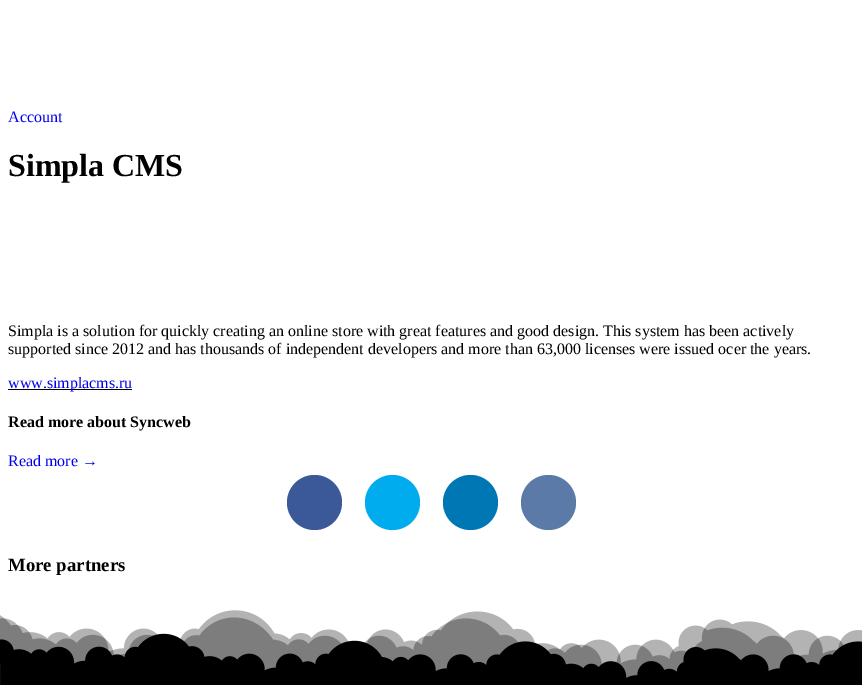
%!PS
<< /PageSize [862 685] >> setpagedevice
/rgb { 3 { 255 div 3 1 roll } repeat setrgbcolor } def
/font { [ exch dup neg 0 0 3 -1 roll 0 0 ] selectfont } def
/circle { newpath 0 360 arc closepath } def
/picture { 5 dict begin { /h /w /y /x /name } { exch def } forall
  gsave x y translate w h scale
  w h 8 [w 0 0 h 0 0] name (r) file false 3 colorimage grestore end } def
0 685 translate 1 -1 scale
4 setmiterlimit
255 255 255 rgb
0 0 862 685 rectfill
0 0 0 rgb
8 389 124 1 rectfill
59 89 152 rgb
314.5 502.5 27.5 circle fill
0 172 237 rgb
392.5 502.5 27.5 circle fill
0 119 181 rgb
470.5 502.5 27.5 circle fill
91 122 168 rgb
548.5 502.5 27.5 circle fill
(img/1.rgb) 0 610 862 75 picture
/LiberationSerif-Regular 16 font
0 0 238 rgb
8 122 moveto (Account) show
/LiberationSerif-Bold 32 font
0 0 0 rgb
8 176 moveto (Simpla CMS) show
/LiberationSerif-Regular 16 font
8 336 moveto (Simpla is a solution for quickly creating an online store with great features and good design. This system has been actively) show
8 354 moveto (supported since 2012 and has thousands of independent developers and more than 63,000 licenses were issued ocer the years.) show
0 0 238 rgb
8 388 moveto (www.simplacms.ru) show
/LiberationSerif-Bold 16 font
0 0 0 rgb
8 427 moveto (Read more about Syncweb) show
/LiberationSerif-Regular 16 font
0 0 238 rgb
8 466 moveto (Read more →) show
/LiberationSerif-Bold 18.75 font
0 0 0 rgb
8 571 moveto (More partners) show
showpage
